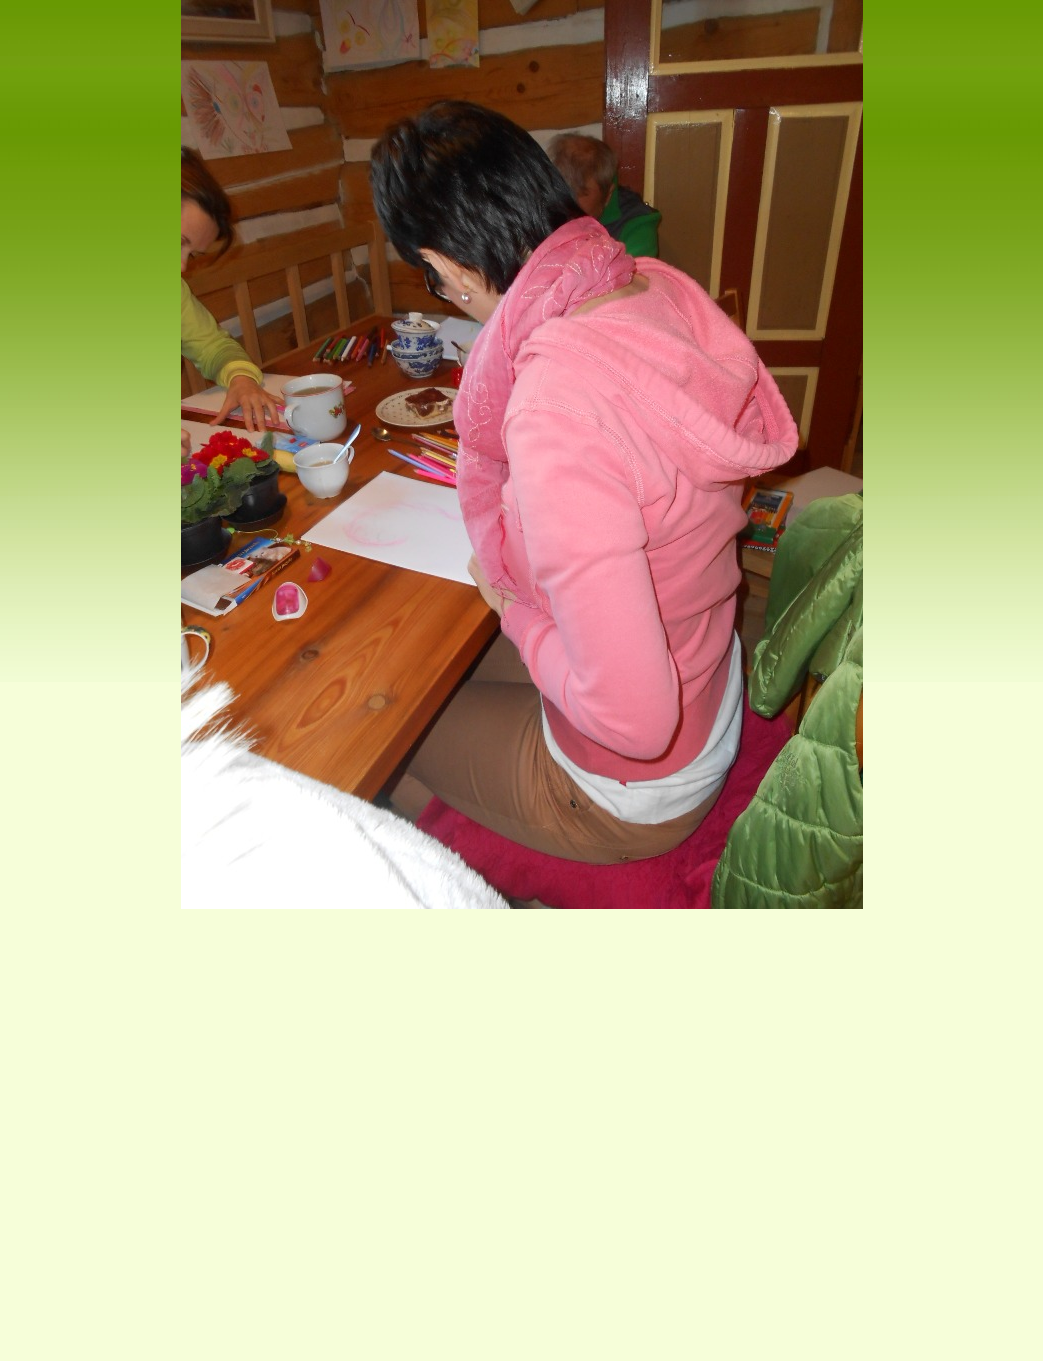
%!PS
<< /PageSize [1043 1361] >> setpagedevice
/rgb { 3 { 255 div 3 1 roll } repeat setrgbcolor } def
/picture { 5 dict begin { /h /w /y /x /name } { exch def } forall
  gsave x y translate w h scale
  w h 8 [w 0 0 h 0 0] name (r) file false 3 colorimage grestore end } def
0 1361 translate 1 -1 scale
4 setmiterlimit
246 254 217 rgb
0 0 1043 1361 rectfill
(img/1.rgb) 0 0 1043 682 picture
(img/2.rgb) 181 0 682 909 picture
showpage
